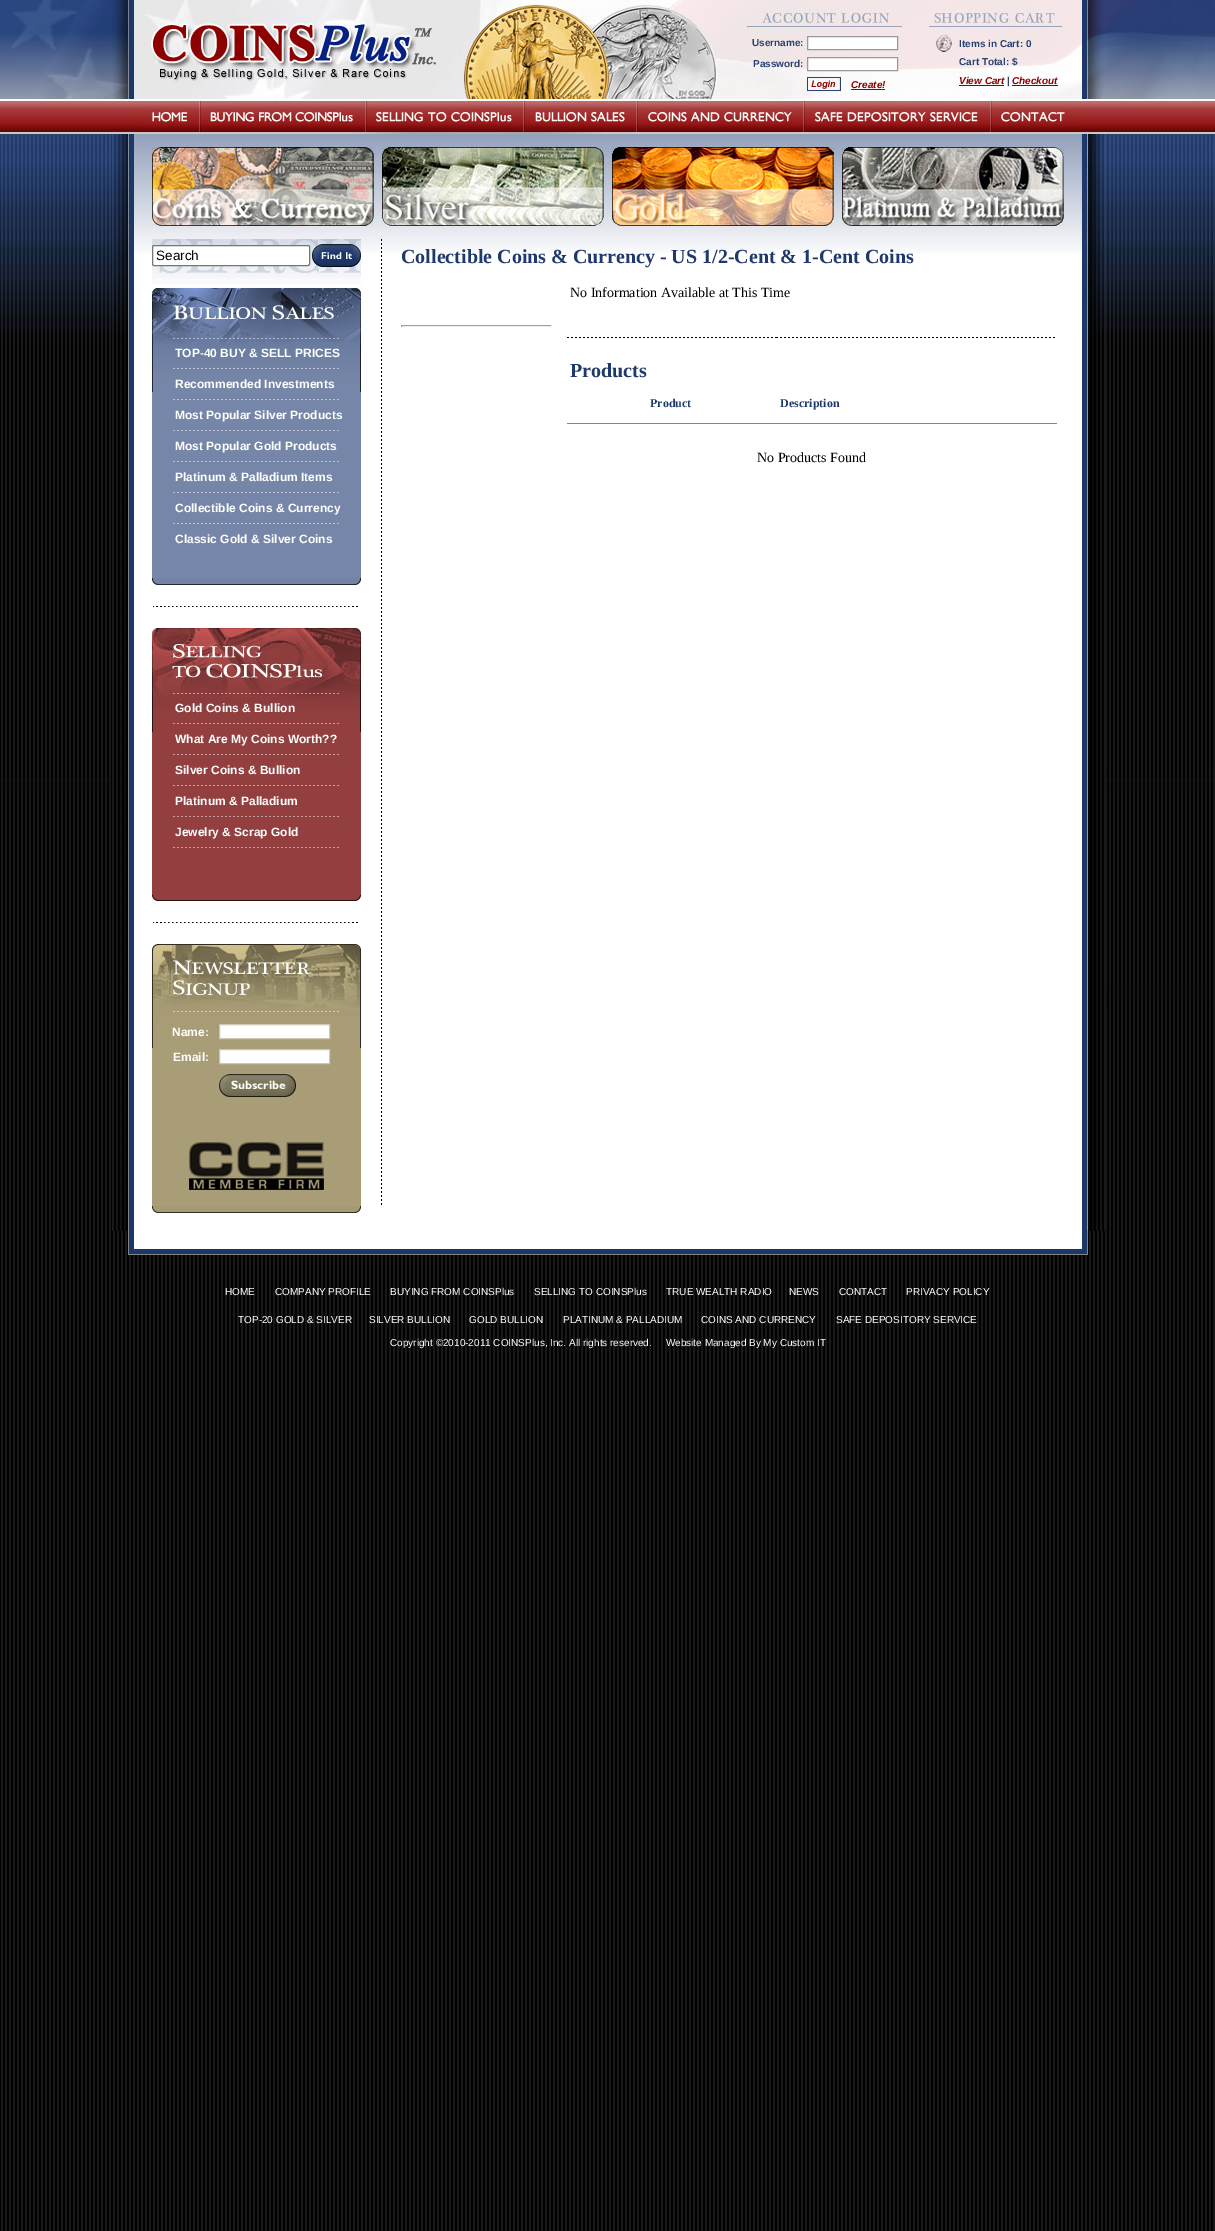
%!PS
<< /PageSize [1215 2231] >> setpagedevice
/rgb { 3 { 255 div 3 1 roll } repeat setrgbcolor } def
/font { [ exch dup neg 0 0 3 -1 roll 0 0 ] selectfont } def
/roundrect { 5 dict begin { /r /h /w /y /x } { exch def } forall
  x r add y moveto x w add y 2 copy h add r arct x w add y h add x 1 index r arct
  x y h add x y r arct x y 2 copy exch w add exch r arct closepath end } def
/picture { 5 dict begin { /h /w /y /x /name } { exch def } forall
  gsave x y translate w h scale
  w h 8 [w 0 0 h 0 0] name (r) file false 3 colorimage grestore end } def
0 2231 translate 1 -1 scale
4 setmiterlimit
255 255 255 rgb
0 0 1215 2231 rectfill
(img/1.rgb) 0 99 1215 2132 picture
(img/2.rgb) 0 0 1215 99 picture
(img/3.rgb) 112 0 22 99 picture
(img/4.rgb) 134 0 613 99 picture
(img/5.rgb) 747 0 182 99 picture
807.5 36.5 moveto 897.5 36.5 lineto 897.5 49.5 lineto 807.5 49.5 lineto closepath gsave fill grestore
153 153 153 rgb
stroke
255 255 255 rgb
807.5 57.5 moveto 897.5 57.5 lineto 897.5 70.5 lineto 807.5 70.5 lineto closepath gsave fill grestore
153 153 153 rgb
stroke
(img/6.rgb) 807 77 34 14 picture
141 0 0 rgb
851 89 34 1 rectfill
(img/7.rgb) 929 0 153 99 picture
(img/8.rgb) 936 35 16 17 picture
959 85 45 1 rectfill
1012 85 46 1 rectfill
(img/9.rgb) 1082 0 22 99 picture
109 6 7 rgb
111 129 23 3 rectfill
(img/10.rgb) 134 100 65 32 picture
(img/11.rgb) 199 100 166 32 picture
(img/12.rgb) 365 100 158 32 picture
(img/13.rgb) 523 100 113 32 picture
(img/14.rgb) 636 100 167 32 picture
(img/15.rgb) 803 100 187 32 picture
(img/16.rgb) 990 100 92 32 picture
1082 129 23 3 rectfill
(img/17.rgb) 351 132 253 2 picture
(img/18.rgb) 111 134 23 1097 picture
(img/19.rgb) 111 134 21 200 picture
255 255 255 rgb
134 253 948 978 rectfill
(img/20.rgb) 134 134 948 119 picture
(img/21.rgb) 152 147 222 79 picture
(img/22.rgb) 382 147 222 79 picture
(img/23.rgb) 612 147 222 79 picture
(img/24.rgb) 842 147 222 79 picture
168 157 119 rgb
152 1048 209 158 rectfill
(img/25.rgb) 152 239 209 49 picture
255 255 255 rgb
152.5 245.5 157 20 1.5 roundrect gsave fill grestore
118 118 118 rgb
stroke
(img/26.rgb) 312 244 49 23 picture
118 134 168 rgb
152 392 209 186 rectfill
(img/27.rgb) 152 288 209 104 picture
(img/28.rgb) 173 368 166 1 picture
(img/29.rgb) 173 399 166 1 picture
(img/29.rgb) 173 430 166 1 picture
(img/29.rgb) 173 461 166 1 picture
(img/29.rgb) 173 492 166 1 picture
(img/29.rgb) 173 523 166 1 picture
(img/30.rgb) 152 578 209 7 picture
(img/31.rgb) 152 585 209 43 picture
147 63 63 rgb
152 732 209 163 rectfill
(img/32.rgb) 152 628 209 104 picture
(img/33.rgb) 173 723 166 1 picture
(img/33.rgb) 173 754 166 1 picture
(img/33.rgb) 173 785 166 1 picture
(img/33.rgb) 173 816 166 1 picture
(img/33.rgb) 173 847 166 1 picture
(img/34.rgb) 152 895 209 6 picture
(img/31.rgb) 152 901 209 43 picture
(img/35.rgb) 152 944 209 104 picture
255 255 255 rgb
219.5 1024.5 moveto 329.5 1024.5 lineto 329.5 1038.5 lineto 219.5 1038.5 lineto closepath gsave fill grestore
205 198 181 rgb
stroke
255 255 255 rgb
219.5 1049.5 moveto 329.5 1049.5 lineto 329.5 1063.5 lineto 219.5 1063.5 lineto closepath gsave fill grestore
205 198 181 rgb
stroke
(img/36.rgb) 219 1074 77 23 picture
(img/37.rgb) 189 1142 135 48 picture
(img/38.rgb) 381 239 1 966 picture
[
  [401 325 151 1 159 159 159]
  [551 325 1 2 238 238 238]
  [401 326 151 1 238 238 238]
  [401 325 1 2 159 159 159]
] { aload pop rgb rectfill } forall
(img/39.rgb) 567 337 488 1 picture
118 134 168 rgb
567 423 490 1 rectfill
(img/40.rgb) 152 1206 209 7 picture
(img/41.rgb) 1082 134 23 1097 picture
(img/42.rgb) 1084 134 21 199 picture
(img/43.rgb) 128 1231 960 24 picture
/LiberationSans-Bold 10 font
41 65 114 rgb
752 46 moveto (Username:) show
753 67 moveto (Password:) show
/LiberationSans-BoldItalic 10 font
141 0 0 rgb
851 88 moveto (Create!) show
/LiberationSans-Bold 10 font
41 65 114 rgb
959 47 moveto (Items in Cart: 0) show
959 65 moveto (Cart Total: $) show
/LiberationSans-BoldItalic 10 font
141 0 0 rgb
959 84 moveto (View Cart) show
/LiberationSans-Bold 10 font
41 65 114 rgb
1007 84 moveto (|) show
/LiberationSans-BoldItalic 10 font
141 0 0 rgb
1012 84 moveto (Checkout) show
/LiberationSans-Regular 13.5 font
0 0 0 rgb
156 260 moveto (Search) show
/LiberationSans-Bold 12 font
255 255 255 rgb
[
  [(TOP-40 BUY & SELL PRICES) 175 357]
  [(Recommended Investments) 175 388]
  [(Most Popular Silver Products) 175 419]
  [(Most Popular Gold Products) 175 450]
  [(Platinum & Palladium Items) 175 481]
  [(Collectible Coins & Currency) 175 512]
  [(Classic Gold & Silver Coins) 175 543]
  [(Gold Coins & Bullion) 175 712]
  [(What Are My Coins Worth??) 175 743]
  [(Silver Coins & Bullion) 175 774]
  [(Platinum & Palladium) 175 805]
  [(Jewelry & Scrap Gold) 175 836]
  [(Name:) 172 1036]
  [(Email:) 173 1061]
] { aload pop moveto show } forall
/LiberationSerif-Bold 20 font
31 57 108 rgb
401 263 moveto (Collectible Coins & Currency - US 1/2-Cent & 1-Cent Coins) show
/LiberationSerif-Regular 14 font
0 0 0 rgb
570 297 moveto (No Information Available at This Time) show
/LiberationSerif-Bold 20 font
31 57 108 rgb
570 377 moveto (Products) show
/LiberationSerif-Bold 12 font
650 407 moveto (Product) show
780 407 moveto (Description) show
/LiberationSerif-Regular 14 font
0 0 0 rgb
757 462 moveto (No Products Found) show
/LiberationSans-Regular 10 font
255 255 255 rgb
[
  [(HOME) 225 1295]
  [(COMPANY PROFILE) 275 1295]
  [(BUYING FROM COINSPlus) 390 1295]
  [(SELLING TO COINSPlus) 534 1295]
  [(TRUE WEALTH RADIO) 666 1295]
  [(NEWS) 789 1295]
  [(CONTACT) 839 1295]
  [(PRIVACY POLICY) 906 1295]
  [(TOP-20 GOLD & SILVER) 238 1323]
  [(SILVER BULLION) 369 1323]
  [(GOLD BULLION) 469 1323]
  [(PLATINUM & PALLADIUM) 563 1323]
  [(COINS AND CURRENCY) 701 1323]
  [(SAFE DEPOSITORY SERVICE) 836 1323]
  [(Copyright ©2010-2011 COINSPlus, Inc. All rights reserved.     Website Managed By My Custom IT) 390 1346]
] { aload pop moveto show } forall
showpage
